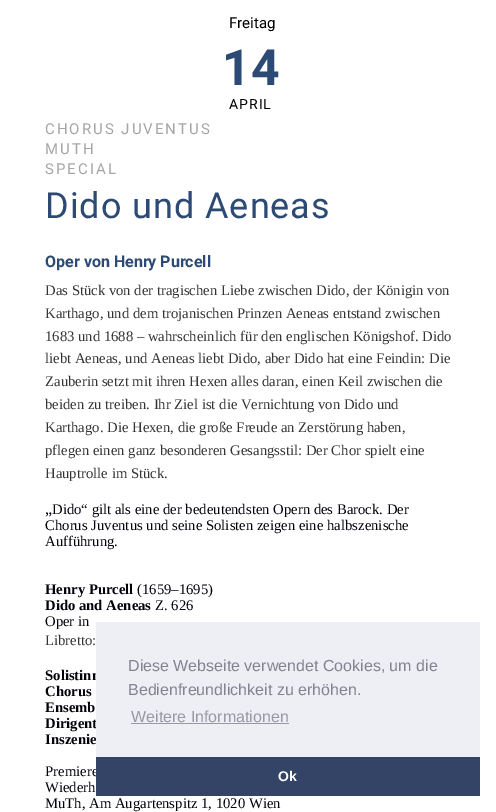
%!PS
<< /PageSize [496 812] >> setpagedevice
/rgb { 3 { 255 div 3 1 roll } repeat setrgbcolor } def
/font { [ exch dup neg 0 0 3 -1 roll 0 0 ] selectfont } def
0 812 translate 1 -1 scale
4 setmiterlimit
255 255 255 rgb
0 0 496 812 rectfill
/Roboto-Regular 15 font
0 0 0 rgb
229 28 moveto (Freitag) show
/Roboto-Bold 50 font
45 74 117 rgb
222 85 moveto (14) show
/Roboto-Regular 14 font
0 0 0 rgb
229 109 moveto 1 0 (APRIL) ashow
/Roboto-Regular 15 font
166 166 166 rgb
45 134 moveto 2 0 (CHORUS JUVENTUS) ashow
45 154 moveto 2 0 (MUTH) ashow
45 174 moveto 2 0 (SPECIAL) ashow
/Roboto-Regular 36 font
45 74 117 rgb
45 218 moveto 1 0 (Dido und Aeneas) ashow
/Roboto-Bold 16 font
45 267 moveto (Oper von Henry Purcell) show
/LiberationSerif-Regular 14.7 font
51 51 51 rgb
[
  [(Das Stück von der tragischen Liebe zwischen Dido, der Königin von) 45 295]
  [(Karthago, und dem trojanischen Prinzen Aeneas entstand zwischen) 45 318]
  [(1683 und 1688 – wahrscheinlich für den englischen Königshof. Dido) 45 341]
  [(liebt Aeneas, und Aeneas liebt Dido, aber Dido hat eine Feindin: Die) 45 363]
  [(Zauberin setzt mit ihren Hexen alles daran, einen Keil zwischen die) 45 386]
  [(beiden zu treiben. Ihr Ziel ist die Vernichtung von Dido und) 45 409]
  [(Karthago. Die Hexen, die große Freude an Zerstörung haben,) 45 432]
  [(pflegen einen ganz besonderen Gesangsstil: Der Chor spielt eine) 45 455]
  [(Hauptrolle im Stück.) 45 478]
] { aload pop moveto show } forall
/LiberationSerif-Regular 16 font
0 0 10 rgb
45 514 moveto („) show
/LiberationSerif-Regular 14.7 font
[
  [(Dido“ gilt als eine der bedeutendsten Opern des Barock. Der) 52 514]
  [(Chorus Juventus und seine Solisten zeigen eine halbszenische) 45 530]
  [(Aufführung.) 45 546]
] { aload pop moveto show } forall
/LiberationSerif-Bold 14.7 font
45 594 moveto (Henry Purcell) show
/LiberationSerif-Regular 14.7 font
137 594 moveto (\(1659–1695\)) show
/LiberationSerif-Bold 14.7 font
45 610 moveto (Dido and Aeneas) show
/LiberationSerif-Regular 14.7 font
155 610 moveto (Z. 626) show
45 626 moveto (Oper in) show
51 51 51 rgb
45 645 moveto (Libretto:) show
/LiberationSerif-Bold 14.7 font
0 0 10 rgb
[
  [(Solistinn) 45 680]
  [(Chorus) 45 696]
  [(Ensemb) 45 712]
  [(Dirigent) 45 728]
  [(Inszenie) 45 744]
] { aload pop moveto show } forall
/LiberationSerif-Regular 14.7 font
[
  [(Premiere) 45 776]
  [(Wiederh) 45 792]
  [(MuTh, Am Augartenspitz 1, 1020 Wien) 45 808]
] { aload pop moveto show } forall
237 239 245 rgb
96 622 384 135 rectfill
/LiberationSans-Regular 16 font
131 131 145 rgb
128 671 moveto (Diese Webseite verwendet Cookies, um die) show
128 695 moveto (Bedienfreundlichkeit zu erhöhen.) show
152 153 165 rgb
131 722 moveto (Weitere Informationen) show
131 723 158 1 rectfill
51 68 102 rgb
96 757 384 39 rectfill
/LiberationSans-Bold 14 font
255 255 255 rgb
278 781 moveto (Ok) show
showpage
